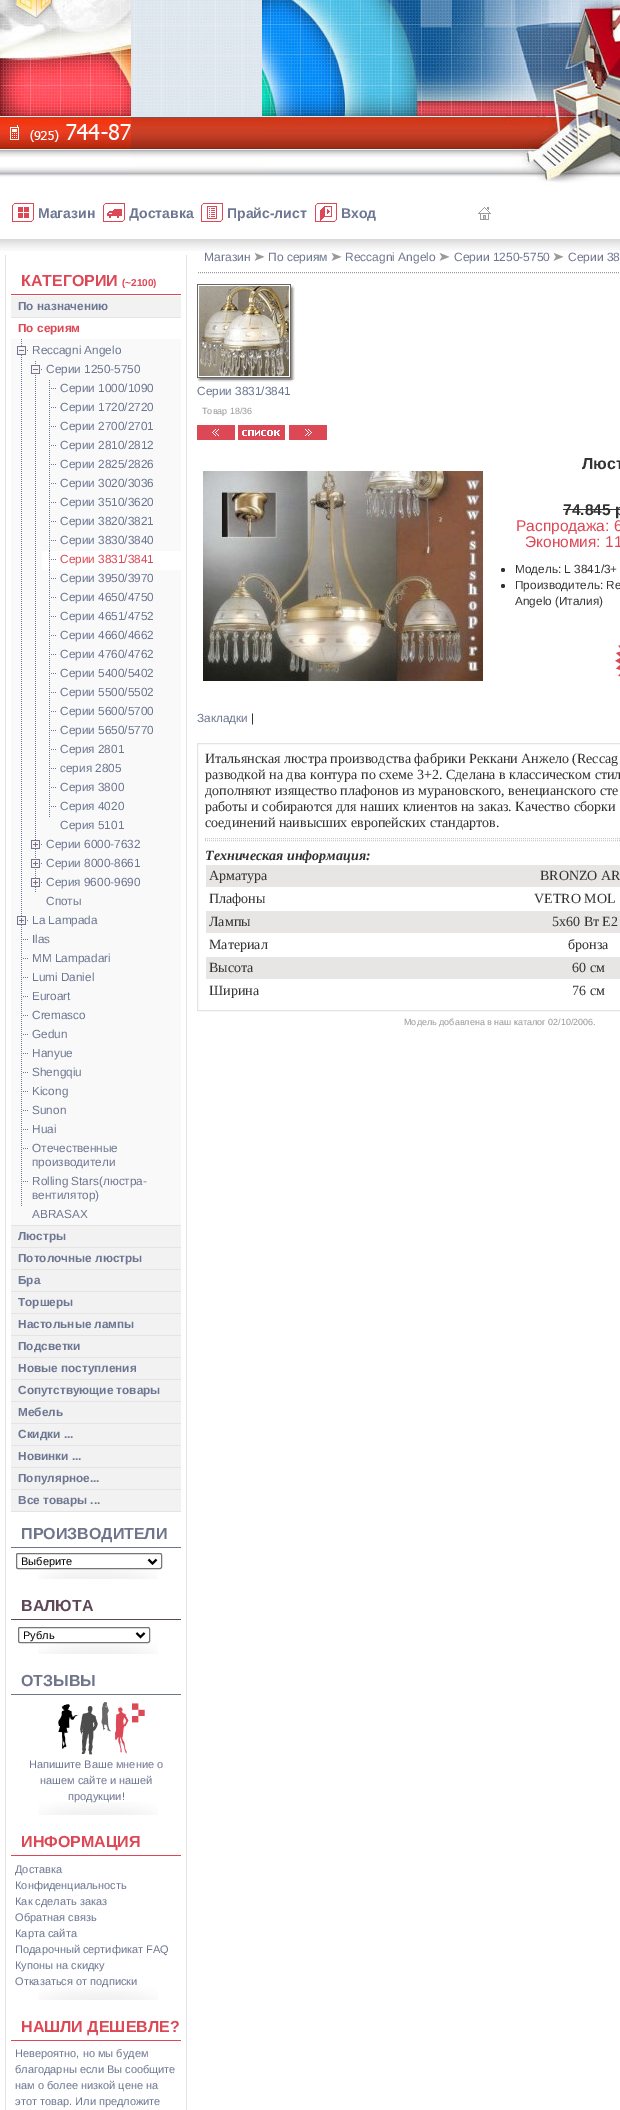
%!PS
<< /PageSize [620 2110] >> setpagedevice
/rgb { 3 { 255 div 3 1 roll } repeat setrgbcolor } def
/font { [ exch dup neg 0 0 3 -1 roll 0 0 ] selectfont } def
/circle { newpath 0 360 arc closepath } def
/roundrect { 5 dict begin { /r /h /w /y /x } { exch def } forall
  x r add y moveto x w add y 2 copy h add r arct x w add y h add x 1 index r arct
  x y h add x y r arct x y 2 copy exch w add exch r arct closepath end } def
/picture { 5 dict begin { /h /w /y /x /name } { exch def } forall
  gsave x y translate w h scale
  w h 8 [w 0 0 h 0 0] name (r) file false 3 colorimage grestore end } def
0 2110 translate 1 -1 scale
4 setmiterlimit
255 255 255 rgb
0 0 620 2110 rectfill
(img/1.rgb) 0 0 523 177 picture
(img/2.rgb) 0 0 131 174 picture
(img/3.rgb) 262 0 130 173 picture
(img/4.rgb) 392 0 131 173 picture
(img/5.rgb) 523 0 97 185 picture
(img/6.rgb) 12 203 22 19 picture
(img/7.rgb) 103 203 22 19 picture
(img/8.rgb) 201 203 22 19 picture
(img/9.rgb) 315 203 22 19 picture
(img/10.rgb) 478 207 13 13 picture
(img/11.rgb) 0 239 620 12 picture
[
  [186 255 1 1855 227 228 227]
  [5 255 1 1855 227 228 227]
  [11 294 170 1 220 72 85]
  [11 317 170 1 227 228 227]
  [11 296 170 21 242 242 242]
  [11 1225 170 1 227 228 227]
  [11 339 170 886 249 249 249]
] { aload pop rgb rectfill } forall
(img/12.rgb) 21 339 1 867 picture
(img/13.rgb) 17 346 11 9 picture
(img/14.rgb) 35 361 1 531 picture
(img/13.rgb) 31 365 11 9 picture
(img/15.rgb) 49 380 1 437 picture
(img/16.rgb) 51 388 5 1 picture
(img/16.rgb) 51 407 5 1 picture
(img/16.rgb) 51 426 5 1 picture
(img/16.rgb) 51 445 5 1 picture
(img/16.rgb) 51 464 5 1 picture
(img/16.rgb) 51 483 5 1 picture
(img/16.rgb) 51 502 5 1 picture
(img/16.rgb) 51 521 5 1 picture
(img/16.rgb) 51 540 5 1 picture
255 255 255 rgb
42 551 139 19 rectfill
(img/17.rgb) 49 551 7 19 picture
(img/16.rgb) 51 578 5 1 picture
(img/16.rgb) 51 597 5 1 picture
(img/16.rgb) 51 616 5 1 picture
(img/16.rgb) 51 635 5 1 picture
(img/16.rgb) 51 654 5 1 picture
(img/16.rgb) 51 673 5 1 picture
(img/16.rgb) 51 692 5 1 picture
(img/16.rgb) 51 711 5 1 picture
(img/16.rgb) 51 730 5 1 picture
(img/16.rgb) 51 749 5 1 picture
(img/16.rgb) 51 768 5 1 picture
(img/16.rgb) 51 787 5 1 picture
(img/16.rgb) 51 806 5 1 picture
(img/18.rgb) 31 840 11 9 picture
(img/18.rgb) 31 859 11 9 picture
(img/18.rgb) 31 878 11 9 picture
(img/18.rgb) 17 916 11 9 picture
(img/16.rgb) 23 939 5 1 picture
(img/16.rgb) 23 958 5 1 picture
(img/16.rgb) 23 977 5 1 picture
(img/16.rgb) 23 996 5 1 picture
(img/16.rgb) 23 1015 5 1 picture
(img/16.rgb) 23 1034 5 1 picture
(img/16.rgb) 23 1053 5 1 picture
(img/16.rgb) 23 1072 5 1 picture
(img/16.rgb) 23 1091 5 1 picture
(img/16.rgb) 23 1110 5 1 picture
(img/16.rgb) 23 1129 5 1 picture
(img/16.rgb) 23 1148 5 1 picture
(img/16.rgb) 23 1181 5 1 picture
[
  [11 1247 170 1 227 228 227]
  [11 1226 170 21 242 242 242]
  [11 1269 170 1 227 228 227]
  [11 1248 170 21 242 242 242]
  [11 1291 170 1 227 228 227]
  [11 1270 170 21 242 242 242]
  [11 1313 170 1 227 228 227]
  [11 1292 170 21 242 242 242]
  [11 1335 170 1 227 228 227]
  [11 1314 170 21 242 242 242]
  [11 1357 170 1 227 228 227]
  [11 1336 170 21 242 242 242]
  [11 1379 170 1 227 228 227]
  [11 1358 170 21 242 242 242]
  [11 1401 170 1 227 228 227]
  [11 1380 170 21 242 242 242]
  [11 1423 170 1 227 228 227]
  [11 1402 170 21 242 242 242]
  [11 1445 170 1 227 228 227]
  [11 1424 170 21 242 242 242]
  [11 1467 170 1 227 228 227]
  [11 1446 170 21 242 242 242]
  [11 1489 170 1 227 228 227]
  [11 1468 170 21 242 242 242]
  [11 1511 170 1 227 228 227]
  [11 1490 170 21 242 242 242]
  [11 1547 170 1 111 117 139]
] { aload pop rgb rectfill } forall
(img/19.rgb) 38 1569 120 10 picture
118 118 118 rgb
16.5 1553.5 145 15 1.5 roundrect stroke
0 0 0 rgb
2 setlinewidth
148.5 1559.5 moveto 152.5 1563.5 lineto 156.5 1559.5 lineto stroke
94 72 88 rgb
11 1619 170 1 rectfill
(img/20.rgb) 38 1641 120 13 picture
255 255 255 rgb
18.5 1627.5 131 15 1.5 roundrect gsave fill grestore
118 118 118 rgb
1 setlinewidth
stroke
0 0 0 rgb
2 setlinewidth
136.5 1633 moveto 140.5 1637 lineto 144.5 1633 lineto stroke
111 117 139 rgb
11 1694 170 1 rectfill
(img/20.rgb) 38 1802 120 13 picture
(img/21.rgb) 58 1702 87 53 picture
220 72 85 rgb
11 1855 170 1 rectfill
(img/20.rgb) 38 1987 120 13 picture
11 2040 170 1 rectfill
154 154 154 rgb
1 setlinewidth
[1 1] 0 setdash
198 272.5 moveto 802 272.5 lineto stroke
(img/22.rgb) 197 284 98 98 picture
(img/23.rgb) 197 425 38 15 picture
(img/24.rgb) 238 425 47 15 picture
(img/25.rgb) 289 425 38 15 picture
(img/26.rgb) 203 471 280 210 picture
51 51 51 rgb
563 509 57 1 rectfill
503 570 2 circle fill
503 586 2 circle fill
(img/27.rgb) 615 645 5 32 picture
227 228 227 rgb
[] 0 setdash
197.5 743.5 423 267 rectstroke
204 204 204 rgb
[1 1] 0 setdash
205 838.5 moveto 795 838.5 lineto stroke
205 840.5 moveto 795 840.5 lineto stroke
[
  [205 838 1 3 204 204 204]
  [206 865 414 22 231 230 228]
  [206 911 414 22 231 230 228]
  [206 957 414 22 231 230 228]
] { aload pop rgb rectfill } forall
/LiberationSans-Bold 14 font
110 119 145 rgb
[
  [(Магазин) 38 218]
  [(Доставка) 129 218]
  [(Прайс-лист) 227 218]
  [(Вход) 341 218]
] { aload pop moveto show } forall
/LiberationSans-Bold 16 font
220 72 85 rgb
21 286 moveto (КАТЕГОРИИ) show
/LiberationSans-Bold 10 font
122 286 moveto (\(~2100\)) show
/LiberationSans-Bold 11.8 font
110 119 145 rgb
18 310 moveto (По назначению) show
220 72 85 rgb
18 332 moveto (По сериям) show
/LiberationSans-Regular 11.8 font
110 119 145 rgb
[
  [(Reccagni Angelo) 32 354]
  [(Серии 1250-5750) 46 373]
  [(Серии 1000/1090) 60 392]
  [(Серии 1720/2720) 60 411]
  [(Серии 2700/2701) 60 430]
  [(Серии 2810/2812) 60 449]
  [(Серии 2825/2826) 60 468]
  [(Серии 3020/3036) 60 487]
  [(Серии 3510/3620) 60 506]
  [(Серии 3820/3821) 60 525]
  [(Серии 3830/3840) 60 544]
] { aload pop moveto show } forall
220 72 85 rgb
60 563 moveto (Серии 3831/3841) show
110 119 145 rgb
[
  [(Серии 3950/3970) 60 582]
  [(Серии 4650/4750) 60 601]
  [(Серии 4651/4752) 60 620]
  [(Серии 4660/4662) 60 639]
  [(Серии 4760/4762) 60 658]
  [(Серии 5400/5402) 60 677]
  [(Серии 5500/5502) 60 696]
  [(Серии 5600/5700) 60 715]
  [(Серии 5650/5770) 60 734]
  [(Серия 2801) 60 753]
  [(серия 2805) 60 772]
  [(Серия 3800) 60 791]
  [(Серия 4020) 60 810]
  [(Серия 5101) 60 829]
  [(Серии 6000-7632) 46 848]
  [(Серии 8000-8661) 46 867]
  [(Серия 9600-9690) 46 886]
  [(Споты) 46 905]
  [(La Lampada) 32 924]
  [(Ilas) 32 943]
  [(MM Lampadari) 32 962]
  [(Lumi Daniel) 32 981]
  [(Euroart) 32 1000]
  [(Cremasco) 32 1019]
  [(Gedun) 32 1038]
  [(Hanyue) 32 1057]
  [(Shengqiu) 32 1076]
  [(Kicong) 32 1095]
  [(Sunon) 32 1114]
  [(Huai) 32 1133]
  [(Отечественные) 32 1152]
  [(производители) 32 1166]
  [(Rolling Stars\(люстра-) 32 1185]
  [(вентилятор\)) 32 1199]
  [(ABRASAX) 32 1218]
] { aload pop moveto show } forall
/LiberationSans-Bold 11.8 font
[
  [(Люстры) 18 1240]
  [(Потолочные люстры) 18 1262]
  [(Бра) 18 1284]
  [(Торшеры) 18 1306]
  [(Настольные лампы) 18 1328]
  [(Подсветки) 18 1350]
  [(Новые поступления) 18 1372]
  [(Сопутствующие товары) 18 1394]
  [(Мебель) 18 1416]
  [(Скидки ...) 18 1438]
  [(Новинки ...) 18 1460]
  [(Популярное...) 18 1482]
  [(Все товары ...) 18 1504]
] { aload pop moveto show } forall
/LiberationSans-Bold 16 font
111 117 139 rgb
21 1539 moveto (ПРОИЗВОДИТЕЛИ) show
/LiberationSans-Regular 11 font
0 0 0 rgb
21 1565 moveto (Выберите) show
/LiberationSans-Bold 16 font
94 72 88 rgb
21 1611 moveto (ВАЛЮТА) show
/LiberationSans-Regular 11 font
0 0 0 rgb
23 1639 moveto (Рубль) show
/LiberationSans-Bold 16 font
111 117 139 rgb
21 1686 moveto (ОТЗЫВЫ) show
/LiberationSans-Regular 11 font
110 119 145 rgb
[
  [(Напишите Ваше мнение о) 29 1768]
  [(нашем сайте и нашей) 40 1784]
  [(продукции!) 68 1800]
] { aload pop moveto show } forall
/LiberationSans-Bold 16 font
220 72 85 rgb
21 1847 moveto (ИНФОРМАЦИЯ) show
/LiberationSans-Regular 11 font
110 119 145 rgb
[
  [(Доставка) 15 1873]
  [(Конфиденциальность) 15 1889]
  [(Как сделать заказ) 15 1905]
  [(Обратная связь) 15 1921]
  [(Карта сайта) 15 1937]
  [(Подарочный сертификат FAQ) 15 1953]
  [(Купоны на скидку) 15 1969]
  [(Отказаться от подписки) 15 1985]
] { aload pop moveto show } forall
/LiberationSans-Bold 16 font
220 72 85 rgb
21 2032 moveto (НАШЛИ ДЕШЕВЛЕ?) show
/LiberationSans-Regular 11 font
110 119 145 rgb
[
  [(Невероятно, но мы будем) 15 2057]
  [(благодарны если Вы сообщите) 15 2073]
  [(нам о более низкой цене на) 15 2089]
  [(этот товар. Или предложите) 15 2105]
] { aload pop moveto show } forall
/LiberationSans-Regular 12 font
204 261 moveto (Магазин) show
/FreeSans-Regular 12 font
154 154 154 rgb
254 261 moveto (➤) show
/LiberationSans-Regular 12 font
110 119 145 rgb
268 261 moveto (По сериям) show
/FreeSans-Regular 12 font
154 154 154 rgb
331 261 moveto (➤) show
/LiberationSans-Regular 12 font
110 119 145 rgb
345 261 moveto (Reccagni Angelo) show
/FreeSans-Regular 12 font
154 154 154 rgb
439 261 moveto (➤) show
/LiberationSans-Regular 12 font
110 119 145 rgb
454 261 moveto (Серии 1250-5750) show
/FreeSans-Regular 12 font
154 154 154 rgb
553 261 moveto (➤) show
/LiberationSans-Regular 12 font
110 119 145 rgb
568 261 moveto (Серии 38) show
/LiberationSans-Regular 11.8 font
197 395 moveto (Серии 3831/3841) show
/LiberationSans-Regular 9 font
154 154 154 rgb
202 414 moveto (Товар 18/36) show
/LiberationSans-Bold 16 font
51 51 51 rgb
582 469 moveto (Люст) show
/LiberationSans-Bold 15.5 font
563 515 moveto (74.845 р) show
/LiberationSans-Regular 15.5 font
220 72 85 rgb
516 531 moveto (Распродажа: 6) show
525 547 moveto (Экономия: 11) show
/LiberationSans-Regular 11.8 font
51 51 51 rgb
[
  [(Модель: L 3841/3+) 515 573]
  [(Производитель: Re) 515 589]
  [(Angelo \(Италия\)) 515 605]
] { aload pop moveto show } forall
110 119 145 rgb
197 722 moveto (Закладки) show
51 51 51 rgb
251 722 moveto (|) show
/LiberationSerif-Regular 14 font
[
  [(Итальянская люстра производства фабрики Реккани Анжело \(Reccag) 205 763]
  [(разводкой на два контура по схеме 3+2. Сделана в классическом стил) 205 779]
  [(дополняют изящество плафонов из мурановского, венецианского сте) 205 795]
  [(работы и собираются для наших клиентов на заказ. Качество сборки) 205 811]
  [(соединений наивысших европейских стандартов.) 205 827]
] { aload pop moveto show } forall
/LiberationSerif-BoldItalic 14 font
205 860 moveto (Техническая информация:) show
/LiberationSerif-Regular 14 font
[
  [(Арматура) 209 880]
  [(BRONZO AR) 540 880]
  [(Плафоны) 209 903]
  [(VETRO MOL) 534 903]
  [(Лампы) 209 926]
  [(5х60 Вт Е2) 552 926]
  [(Материал) 209 949]
  [(бронза) 568 949]
  [(Высота) 209 972]
  [(60 см) 572 972]
  [(Ширина) 209 995]
  [(76 см) 572 995]
] { aload pop moveto show } forall
/LiberationSans-Regular 9 font
154 154 154 rgb
404 1025 moveto (Модель добавлена в наш каталог 02/10/2006.) show
showpage
